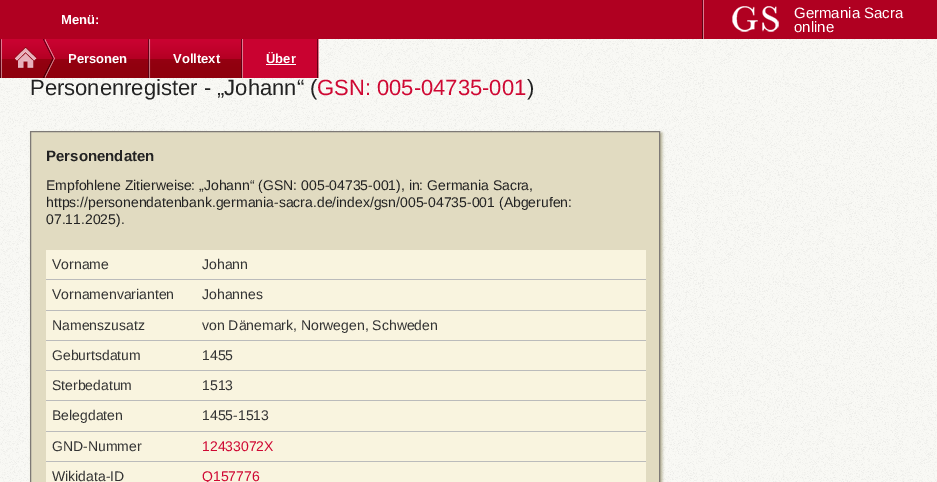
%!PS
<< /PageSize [937 482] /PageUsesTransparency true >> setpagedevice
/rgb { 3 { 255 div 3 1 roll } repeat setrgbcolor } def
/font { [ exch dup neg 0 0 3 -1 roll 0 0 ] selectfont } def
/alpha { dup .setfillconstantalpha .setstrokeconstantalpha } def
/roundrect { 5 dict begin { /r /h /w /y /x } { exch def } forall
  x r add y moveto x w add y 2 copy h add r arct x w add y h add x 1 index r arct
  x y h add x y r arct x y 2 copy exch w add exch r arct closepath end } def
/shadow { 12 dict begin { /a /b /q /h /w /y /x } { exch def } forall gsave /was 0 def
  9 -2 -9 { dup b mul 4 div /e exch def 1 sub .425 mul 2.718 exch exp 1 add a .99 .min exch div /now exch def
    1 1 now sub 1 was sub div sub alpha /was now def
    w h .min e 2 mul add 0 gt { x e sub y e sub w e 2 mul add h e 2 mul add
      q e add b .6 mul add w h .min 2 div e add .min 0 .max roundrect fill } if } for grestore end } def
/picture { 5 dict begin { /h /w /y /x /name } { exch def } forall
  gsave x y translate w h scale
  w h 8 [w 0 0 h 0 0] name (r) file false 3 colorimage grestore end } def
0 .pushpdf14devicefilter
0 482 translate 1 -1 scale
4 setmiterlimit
255 255 255 rgb
0 0 937 482 rectfill
(img/1.rgb) 0 39 937 443 picture
176 0 33 rgb
0 0 937 39 rectfill
(img/2.rgb) 0 39 43 39 picture
(img/3.rgb) 15 47 22 21 picture
(img/4.rgb) 43 39 105 39 picture
(img/5.rgb) 148 39 93 39 picture
201 2 48 rgb
243 39 74 39 rectfill
(img/6.rgb) 241 39 2 39 picture
255 255 255 rgb
266 64 30 1 rectfill
(img/6.rgb) 317 39 2 39 picture
(img/6.rgb) 702 0 2 39 picture
(img/7.rgb) 732 6 47 26 picture
176 171 141 rgb
32 133 630 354 0 1.5 1 shadow
225 219 193 rgb
30.5 131.5 moveto 659.5 131.5 lineto 659.5 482.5 lineto 30.5 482.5 lineto closepath gsave fill grestore
125 121 118 rgb
stroke
[
  [46 250 600 29 249 244 223]
  [46 279 600 1 187 187 187]
  [46 280 600 30 249 244 223]
  [46 310 600 1 187 187 187]
  [46 311 600 29 249 244 223]
  [46 340 600 1 187 187 187]
  [46 341 600 29 249 244 223]
  [46 370 600 1 187 187 187]
  [46 371 600 29 249 244 223]
  [46 400 600 1 187 187 187]
  [46 401 600 30 249 244 223]
  [46 431 600 1 187 187 187]
  [46 432 600 29 249 244 223]
  [46 461 600 1 187 187 187]
  [46 462 600 20 249 244 223]
] { aload pop rgb rectfill } forall
/LiberationSans-Bold 13 font
255 255 255 rgb
[
  [(Menü:) 61 24]
  [(Personen) 68 63]
  [(Volltext) 173 63]
  [(Über) 266 63]
] { aload pop moveto show } forall
/LiberationSans-Regular 15 font
794 18 moveto (Germania Sacra) show
794 32 moveto (online) show
/LiberationSans-Regular 22 font
34 34 34 rgb
30 95 moveto (Personenregister - „Johann“ \() show
207 8 51 rgb
317 95 moveto (GSN: 005-04735-001) show
34 34 34 rgb
527 95 moveto (\)) show
/LiberationSans-Bold 15 font
46 161 moveto (Personendaten) show
/LiberationSans-Regular 14 font
[
  [(Empfohlene Zitierweise: „Johann“ \(GSN: 005-04735-001\), in: Germania Sacra,) 46 190]
  [(https://personendatenbank.germania-sacra.de/index/gsn/005-04735-001 \(Abgerufen:) 46 207]
  [(07.11.2025\).) 46 224]
] { aload pop moveto show } forall
51 51 51 rgb
[
  [(Vorname) 52 269]
  [(Johann) 202 269]
  [(Vornamenvarianten) 52 299]
  [(Johannes) 202 299]
  [(Namenszusatz) 52 330]
  [(von Dänemark, Norwegen, Schweden) 202 330]
  [(Geburtsdatum) 52 360]
  [(1455) 202 360]
  [(Sterbedatum) 52 390]
  [(1513) 202 390]
  [(Belegdaten) 52 420]
  [(1455-1513) 202 420]
  [(GND-Nummer) 52 451]
] { aload pop moveto show } forall
207 8 51 rgb
202 451 moveto (12433072X) show
51 51 51 rgb
52 481 moveto (Wikidata-ID) show
207 8 51 rgb
202 481 moveto (Q157776) show
.poppdf14devicefilter showpage
